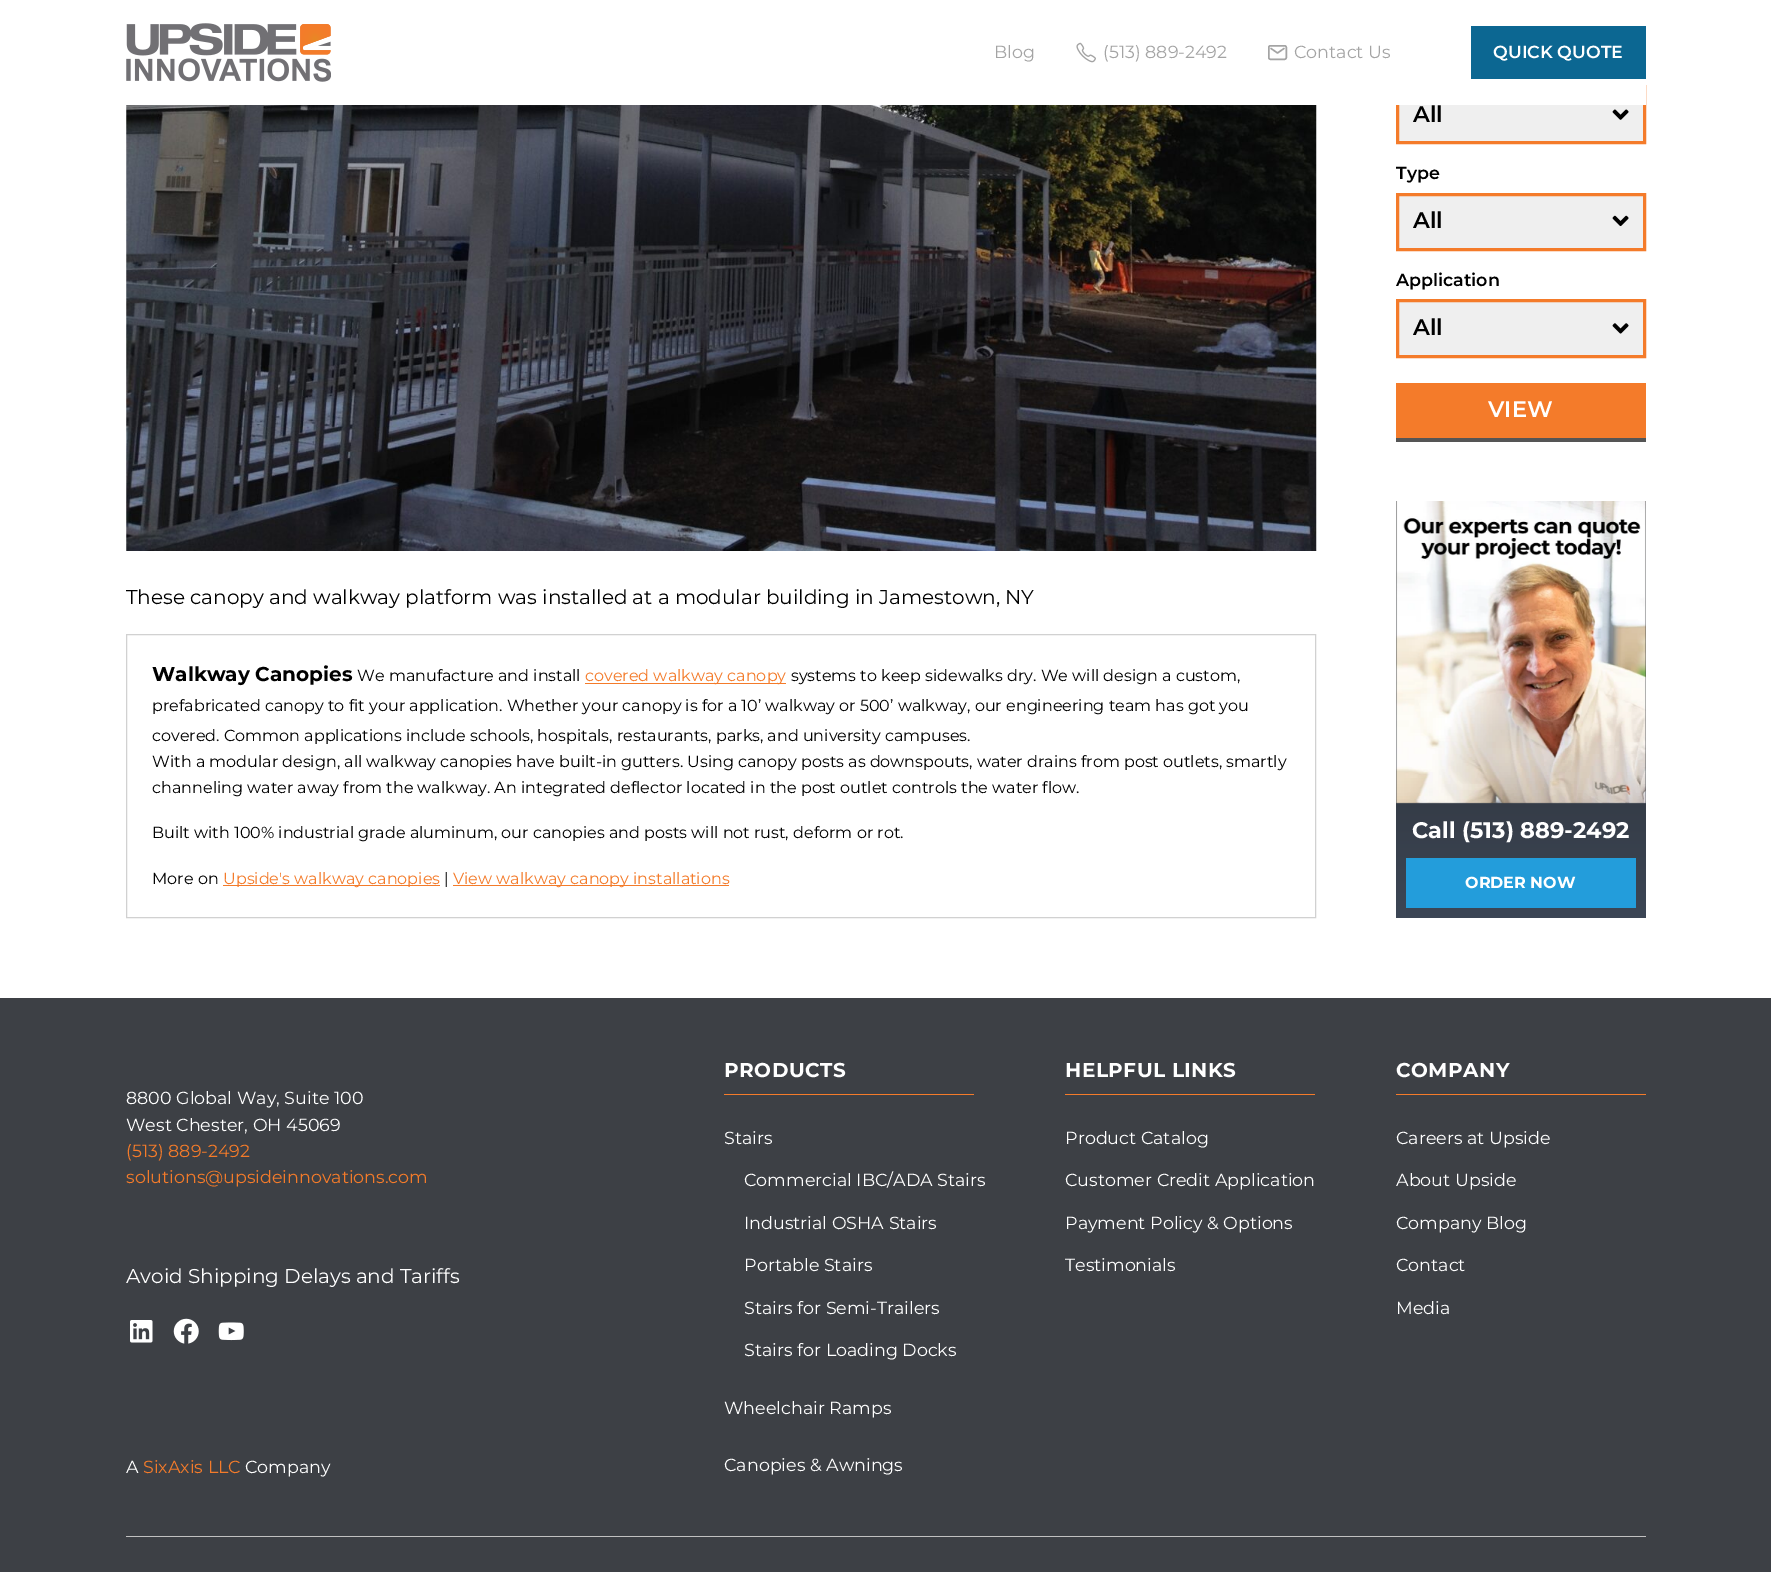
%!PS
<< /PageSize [1771 1572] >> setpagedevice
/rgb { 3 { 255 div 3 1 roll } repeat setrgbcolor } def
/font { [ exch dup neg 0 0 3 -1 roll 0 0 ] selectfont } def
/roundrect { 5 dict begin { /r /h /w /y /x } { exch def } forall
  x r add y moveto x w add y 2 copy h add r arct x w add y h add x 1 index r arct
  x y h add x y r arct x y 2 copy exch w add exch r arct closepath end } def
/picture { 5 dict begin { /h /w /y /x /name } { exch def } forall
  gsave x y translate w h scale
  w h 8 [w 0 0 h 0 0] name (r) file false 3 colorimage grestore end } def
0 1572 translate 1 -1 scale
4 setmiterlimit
255 255 255 rgb
0 0 1771 1572 rectfill
239 239 239 rgb
1399 105 244 36 rectfill
(img/4.rgb) 1612 109 17 11 picture
244 123 42 rgb
3 setlinewidth
1397.5 86.5 247 56 rectstroke
255 255 255 rgb
1396 85 250 20 rectfill
(img/1.rgb) 126 23 205 59 picture
(img/2.rgb) 1076 42 20 21 picture
164 164 164 rgb
1.5 setlinewidth
1268.75 45.75 17.5 13.5 1.75 roundrect stroke
1.4 setlinewidth
1 setlinecap
1 setlinejoin
1271 48.5 moveto 1277.5 53 lineto 1284 48.5 lineto stroke
12 103 146 rgb
1471 26 175 53 rectfill
(img/3.rgb) 126 105 1191 446 picture
209 209 209 rgb
1 setlinewidth
0 setlinecap
0 setlinejoin
126.5 634.5 1189 283 rectstroke
[
  [585 683 201 1 244 123 42]
  [223 885 217 1 244 123 42]
  [453 885 276 1 244 123 42]
  [1399 196 244 52 239 239 239]
] { aload pop rgb rectfill } forall
(img/5.rgb) 1612 215 17 12 picture
244 123 42 rgb
3 setlinewidth
1397.5 194.5 247 55 rectstroke
239 239 239 rgb
1399 302 244 53 rectfill
(img/6.rgb) 1612 323 17 11 picture
244 123 42 rgb
1397.5 300.5 247 56 rectstroke
1396 383 250 55 rectfill
85 85 85 rgb
1396 438 250 4 rectfill
gsave 1396 501 moveto 1646 501 lineto 1646 918 lineto 1396 918 lineto closepath clip newpath
<< /ShadingType 2 /ColorSpace /DeviceRGB /Coords [1521 501 1521 918] /Extend [true true] /Function << /FunctionType 2 /Domain [0 1] /C0 [0.141 0.141 0.141] /C1 [0.235 0.275 0.333] /N 1 >> >> shfill grestore
(img/7.rgb) 1396 501 250 303 picture
35 157 219 rgb
1406 858 230 50 rectfill
61 64 69 rgb
0 998 1771 574 rectfill
(img/8.rgb) 130 1320 23 23 picture
(img/9.rgb) 173 1318 26 26 picture
(img/10.rgb) 218 1322 26 19 picture
[
  [724 1094 250 1 244 123 42]
  [1065 1094 250 1 244 123 42]
  [1396 1094 250 1 244 123 42]
  [126 1536 1520 1 193 193 193]
] { aload pop rgb rectfill } forall
/Montserrat-Regular 17.5 font
164 164 164 rgb
[
  [(Blog) 994 58]
  [(\(513\) 889-2492) 1103 58]
  [(Contact Us) 1294 58]
] { aload pop moveto show } forall
/Montserrat-SemiBold 17.5 font
255 255 255 rgb
1493 58 moveto (QUICK QUOTE) show
/Montserrat-Regular 20 font
0 0 0 rgb
126 604 moveto (These canopy and walkway platform was installed at a modular building in Jamestown, NY) show
/Montserrat-Bold 20 font
152 681 moveto (Walkway Canopies) show
/Montserrat-Regular 16 font
357 681 moveto (We manufacture and install) show
244 123 42 rgb
585 681 moveto (covered walkway canopy) show
0 0 0 rgb
[
  [(systems to keep sidewalks dry. We will design a custom,) 791 681]
  [(prefabricated canopy to fit your application. Whether your canopy is for a 10’ walkway or 500’ walkway, our engineering team has got you) 152 711]
  [(covered. Common applications include schools, hospitals, restaurants, parks, and university campuses.) 152 741]
  [(With a modular design, all walkway canopies have built-in gutters. Using canopy posts as downspouts, water drains from post outlets, smartly) 152 767]
  [(channeling water away from the walkway. An integrated deflector located in the post outlet controls the water flow.) 152 793]
  [(Built with 100% industrial grade aluminum, our canopies and posts will not rust, deform or rot.) 152 838]
  [(More on) 152 884]
] { aload pop moveto show } forall
244 123 42 rgb
223 884 moveto (Upside's walkway canopies) show
0 0 0 rgb
444 884 moveto (|) show
244 123 42 rgb
453 884 moveto (View walkway canopy installations) show
/Montserrat-SemiBold 22.5 font
0 0 0 rgb
1413 122 moveto (All) show
/Montserrat-SemiBold 17.5 font
1396 179 moveto (Type) show
/Montserrat-SemiBold 22.5 font
1413 228 moveto (All) show
/Montserrat-SemiBold 17.5 font
1396 286 moveto (Application) show
/Montserrat-SemiBold 22.5 font
1413 335 moveto (All) show
255 255 255 rgb
1488 417 moveto (VIEW) show
/Montserrat-Bold 22.5 font
1412 838 moveto (Call \(513\) 889-2492) show
/Montserrat-Bold 16 font
1465 888 moveto (ORDER NOW) show
/Montserrat-Regular 17.5 font
126 1104 moveto (8800 Global Way, Suite 100) show
126 1131 moveto (West Chester, OH 45069) show
244 123 42 rgb
126 1157 moveto (\(513\) 889-2492) show
126 1183 moveto (solutions@upsideinnovations.com) show
/Montserrat-Regular 20 font
255 255 255 rgb
126 1283 moveto (Avoid Shipping Delays and Tariffs) show
/Montserrat-Regular 17.5 font
126 1473 moveto (A) show
244 123 42 rgb
143 1473 moveto (SixAxis LLC) show
255 255 255 rgb
245 1473 moveto (Company) show
/Montserrat-Bold 20 font
724 1077 moveto 0.5 0 (PRODUCTS) ashow
/Montserrat-Regular 17.5 font
[
  [(Stairs) 724 1144]
  [(Commercial IBC/ADA Stairs) 744 1186]
  [(Industrial OSHA Stairs) 744 1229]
  [(Portable Stairs) 744 1271]
  [(Stairs for Semi-Trailers) 744 1314]
  [(Stairs for Loading Docks) 744 1356]
  [(Wheelchair Ramps) 724 1414]
  [(Canopies & Awnings) 724 1471]
] { aload pop moveto show } forall
/Montserrat-Bold 20 font
1065 1077 moveto 0.5 0 (HELPFUL LINKS) ashow
/Montserrat-Regular 17.5 font
[
  [(Product Catalog) 1065 1144]
  [(Customer Credit Application) 1065 1186]
  [(Payment Policy & Options) 1065 1229]
  [(Testimonials) 1065 1271]
] { aload pop moveto show } forall
/Montserrat-Bold 20 font
1396 1077 moveto 0.5 0 (COMPANY) ashow
/Montserrat-Regular 17.5 font
[
  [(Careers at Upside) 1396 1144]
  [(About Upside) 1396 1186]
  [(Company Blog) 1396 1229]
  [(Contact) 1396 1271]
  [(Media) 1396 1314]
] { aload pop moveto show } forall
showpage
